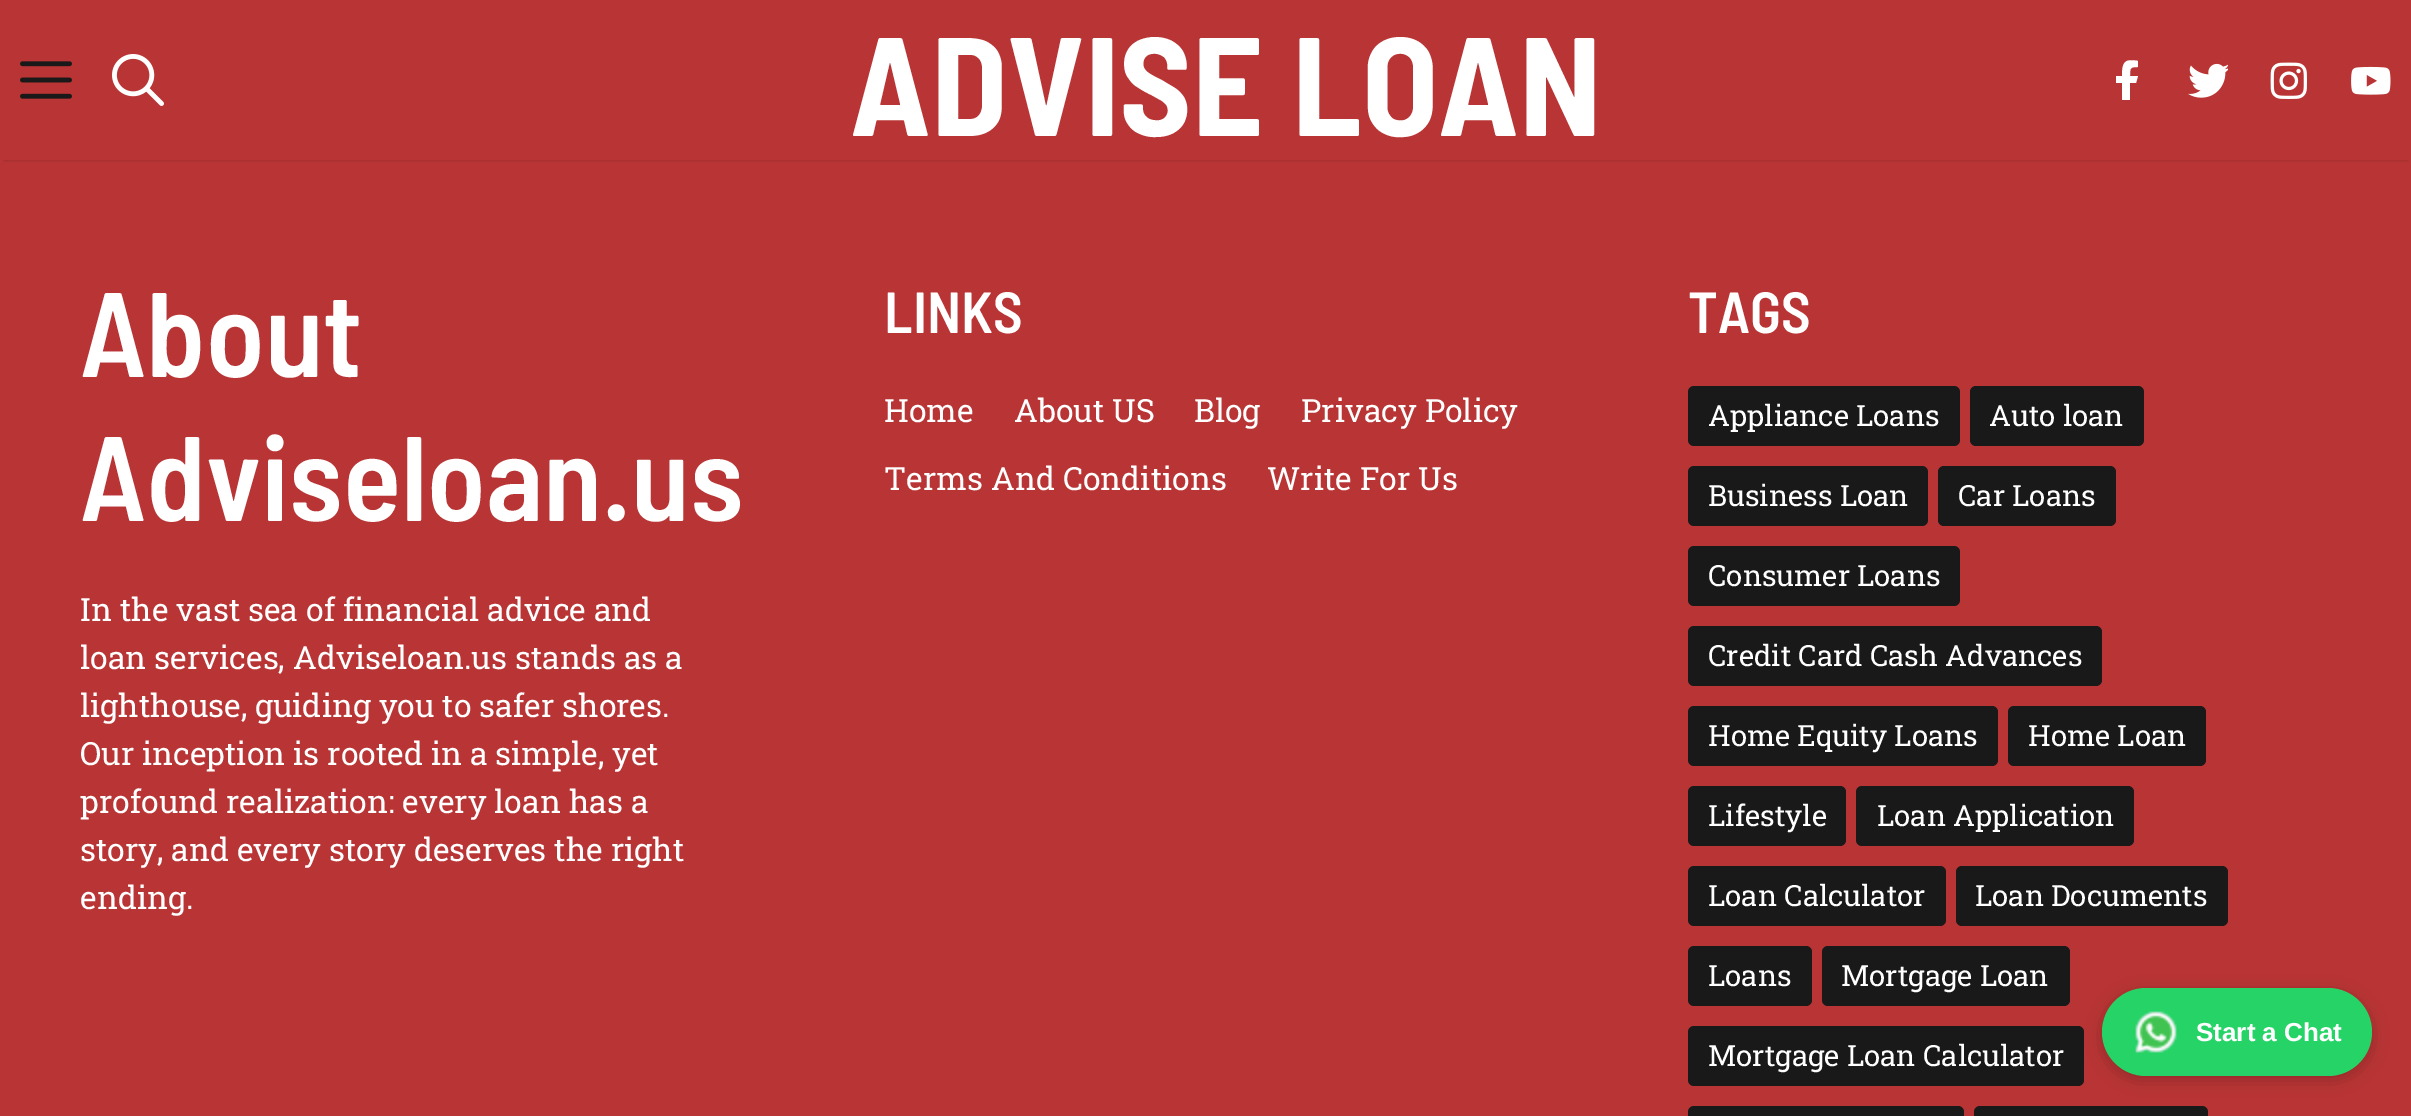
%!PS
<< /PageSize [2411 1116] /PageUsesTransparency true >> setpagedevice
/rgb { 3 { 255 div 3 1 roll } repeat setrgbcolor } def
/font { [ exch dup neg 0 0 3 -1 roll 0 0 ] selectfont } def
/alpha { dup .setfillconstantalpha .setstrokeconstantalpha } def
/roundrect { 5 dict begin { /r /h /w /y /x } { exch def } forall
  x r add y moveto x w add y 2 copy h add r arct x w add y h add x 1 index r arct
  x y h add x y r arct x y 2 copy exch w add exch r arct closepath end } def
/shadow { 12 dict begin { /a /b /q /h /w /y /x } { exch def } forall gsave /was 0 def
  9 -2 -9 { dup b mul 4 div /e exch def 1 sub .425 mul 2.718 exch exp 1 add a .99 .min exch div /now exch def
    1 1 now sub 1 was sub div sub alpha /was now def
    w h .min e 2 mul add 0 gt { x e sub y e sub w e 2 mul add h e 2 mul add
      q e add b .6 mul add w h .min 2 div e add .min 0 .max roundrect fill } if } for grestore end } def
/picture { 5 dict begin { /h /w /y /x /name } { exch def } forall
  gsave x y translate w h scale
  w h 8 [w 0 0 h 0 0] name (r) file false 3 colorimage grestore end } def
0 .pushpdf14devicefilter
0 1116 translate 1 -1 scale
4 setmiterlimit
185 52 52 rgb
0 0 2411 1116 rectfill
gsave
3 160 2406 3 rectclip
0 0 0 rgb
4 8 2404 152 0 2 0.2 shadow
grestore
(img/1.rgb) 20 61 52 38 picture
(img/2.rgb) 112 54 52 52 picture
gsave
2106 60 42 40 rectclip
255 255 255 rgb
2136 83 moveto 2138 76 lineto 2130 76 lineto 2130 68 2130 67 2138 67 curveto 2138 61 lineto 2124 58 2122 63 2122 76 curveto 2116 76 lineto 2116 83 lineto 2122 83 lineto 2122 102 lineto 2130 102 lineto 2130 83 lineto closepath fill
grestore
(img/3.rgb) 2188 63 40 35 picture
(img/4.rgb) 2270 62 37 37 picture
(img/5.rgb) 2351 66 40 29 picture
25 25 25 rgb
1688 386 272 60 6 roundrect fill
1970 386 174 60 6 roundrect fill
1688 466 240 60 6 roundrect fill
1938 466 178 60 6 roundrect fill
1688 546 272 60 6 roundrect fill
1688 626 414 60 6 roundrect fill
1688 706 310 60 6 roundrect fill
2008 706 198 60 6 roundrect fill
1688 786 158 60 6 roundrect fill
1856 786 278 60 6 roundrect fill
1688 866 258 60 6 roundrect fill
1956 866 272 60 6 roundrect fill
1688 946 124 60 6 roundrect fill
1822 946 248 60 6 roundrect fill
1688 1026 396 60 6 roundrect fill
1688 1106 276 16 6 roundrect fill
1974 1106 234 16 6 roundrect fill
0 0 0 rgb
2102 992 270 88 44 8 0.2 shadow
37 211 102 rgb
2102 988 270 88 44 roundrect fill
(img/6.rgb) 2135 1011 42 43 picture
/BarlowSemiCondensed-Bold 140 font
255 255 255 rgb
850 136 moveto (ADVISE LOAN) show
/BarlowSemiCondensed-SemiBold 120 font
80 377 moveto (About) show
80 521 moveto (Adviseloan.us) show
/RobotoSlab-Regular 32 font
[
  [(In the vast sea of financial advice and) 80 621]
  [(loan services, Adviseloan.us stands as a) 80 669]
  [(lighthouse, guiding you to safer shores.) 80 717]
  [(Our inception is rooted in a simple, yet) 80 765]
  [(profound realization: every loan has a) 80 813]
  [(story, and every story deserves the right) 80 861]
  [(ending.) 80 909]
] { aload pop moveto show } forall
/BarlowSemiCondensed-SemiBold 58 font
884 333 moveto (LINKS) show
/RobotoSlab-Regular 32 font
[
  [(Home) 884 422]
  [(About US) 1014 422]
  [(Blog) 1194 422]
  [(Privacy Policy) 1301 422]
  [(Terms And Conditions) 884 490]
  [(Write For Us) 1267 490]
] { aload pop moveto show } forall
/BarlowSemiCondensed-SemiBold 58 font
1688 333 moveto (TAGS) show
/RobotoSlab-Regular 29.3 font
[
  [(Appliance Loans) 1708 426]
  [(Auto loan) 1989 426]
  [(Business Loan) 1708 506]
  [(Car Loans) 1958 506]
  [(Consumer Loans) 1708 586]
  [(Credit Card Cash Advances) 1708 666]
  [(Home Equity Loans) 1708 746]
  [(Home Loan) 2028 746]
  [(Lifestyle) 1708 826]
  [(Loan Application) 1877 826]
  [(Loan Calculator) 1708 906]
  [(Loan Documents) 1975 906]
  [(Loans) 1708 986]
  [(Mortgage Loan) 1841 986]
  [(Mortgage Loan Calculator) 1708 1066]
] { aload pop moveto show } forall
/LiberationSans-Bold 26 font
2196 1041 moveto (Start a Chat) show
.poppdf14devicefilter showpage
